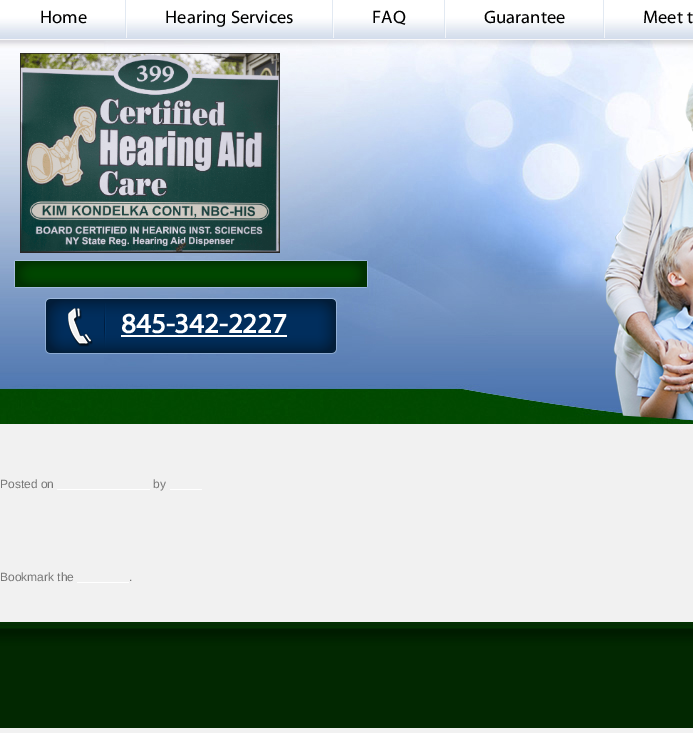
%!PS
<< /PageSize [693 733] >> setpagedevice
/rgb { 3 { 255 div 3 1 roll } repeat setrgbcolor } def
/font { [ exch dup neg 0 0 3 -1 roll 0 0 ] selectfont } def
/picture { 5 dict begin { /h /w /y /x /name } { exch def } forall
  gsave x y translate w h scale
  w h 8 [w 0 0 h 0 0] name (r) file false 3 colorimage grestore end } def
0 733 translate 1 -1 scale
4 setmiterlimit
241 241 241 rgb
0 0 693 733 rectfill
(img/1.rgb) 0 0 693 40 picture
(img/2.rgb) 125 0 2 38 picture
(img/2.rgb) 332 0 2 38 picture
(img/2.rgb) 444 0 2 38 picture
(img/2.rgb) 603 0 2 38 picture
(img/3.rgb) 0 40 693 384 picture
(img/4.rgb) 20 53 260 200 picture
(img/5.rgb) 604 83 89 337 picture
(img/6.rgb) 14 260 354 28 picture
(img/7.rgb) 45 298 292 56 picture
[
  [121 335 166 2 255 255 255]
  [57 489 93 1 255 255 255]
  [170 489 32 1 255 255 255]
  [77 582 52 1 255 255 255]
] { aload pop rgb rectfill } forall
(img/8.rgb) 0 622 693 106 picture
/Myriad-Regular 18 font
0 0 0 rgb
[
  [(Home) 40 23]
  [(Hearing Services) 165 23]
  [(FAQ) 372 23]
  [(Guarantee) 484 23]
  [(Meet t) 643 23]
] { aload pop moveto show } forall
/Myriad-Bold 28 font
255 255 255 rgb
121 333 moveto (845-342-2227) show
/LiberationSans-Regular 12 font
119 119 119 rgb
[
  [(Posted on) 0 488]
  [(by) 153 488]
  [(Bookmark the) 0 581]
  [(.) 129 581]
] { aload pop moveto show } forall
showpage
